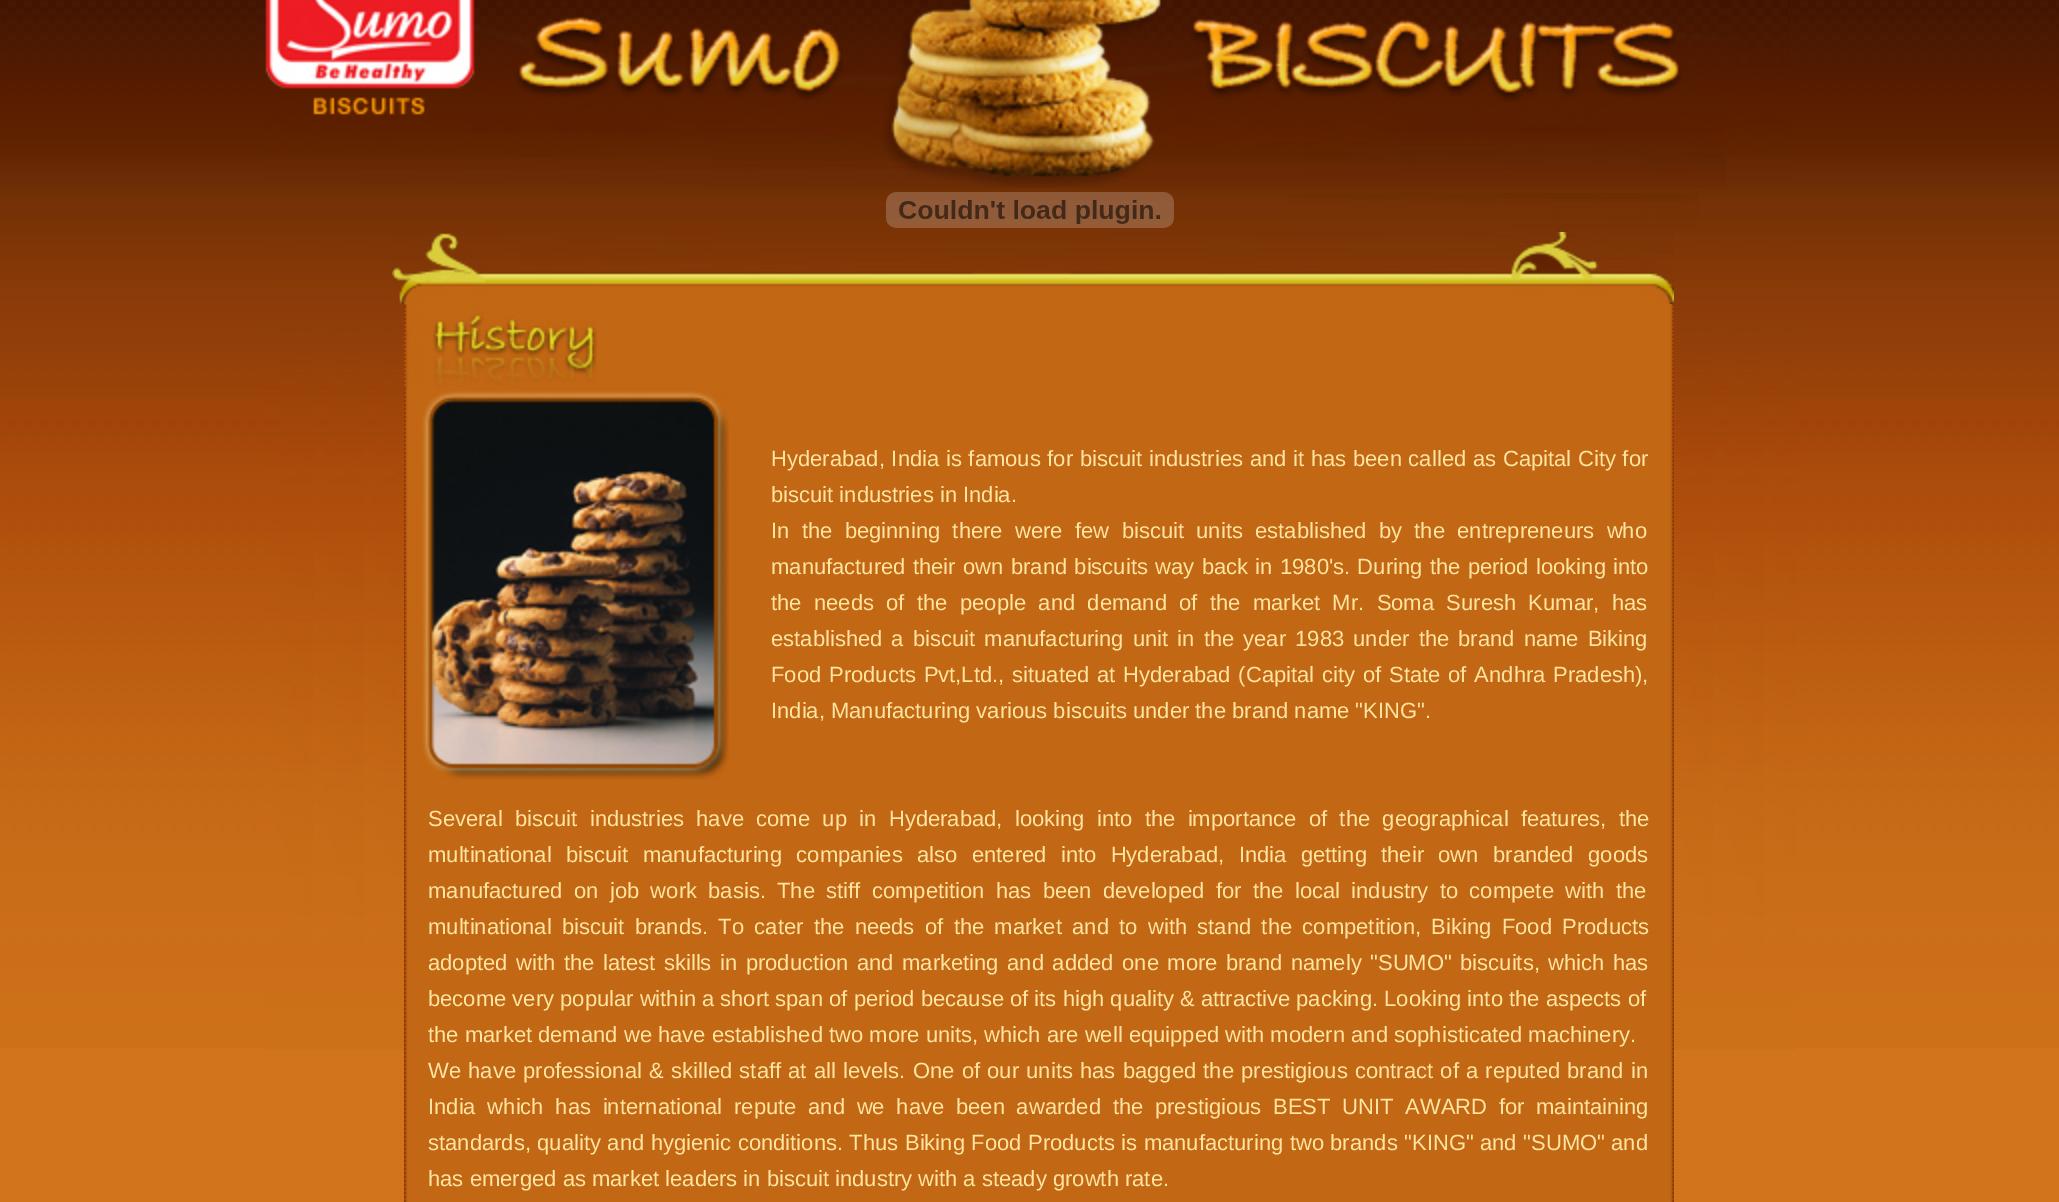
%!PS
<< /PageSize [2059 1202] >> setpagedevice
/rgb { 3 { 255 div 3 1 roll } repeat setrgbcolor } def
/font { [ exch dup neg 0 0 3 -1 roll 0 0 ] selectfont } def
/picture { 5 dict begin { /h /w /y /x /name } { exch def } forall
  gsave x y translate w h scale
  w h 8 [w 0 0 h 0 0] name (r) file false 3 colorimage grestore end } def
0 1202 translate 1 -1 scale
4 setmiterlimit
209 116 27 rgb
0 0 2059 1202 rectfill
(img/1.rgb) 0 0 2059 1048 picture
(img/2.rgb) 264 0 1527 188 picture
(img/3.rgb) 1287 193 412 39 picture
(img/4.rgb) 886 192 288 36 picture
(img/5.rgb) 264 232 1532 818 picture
(img/6.rgb) 392 232 1282 72 picture
(img/7.rgb) 404 304 1270 898 picture
(img/8.rgb) 404 304 193 84 picture
(img/9.rgb) 422 391 307 389 picture
/LiberationSans-Regular 22 font
255 228 162 rgb
771 466 moveto 0.6 0 32 (Hyderabad, India is famous for biscuit industries and it has been called as Capital City for) widthshow
771 502 moveto (biscuit industries in India.) show
771 538 moveto 6.25 0 32 (In the beginning there were few biscuit units established by the entrepreneurs who) widthshow
771 574 moveto 1.25 0 32 (manufactured their own brand biscuits way back in 1980's. During the period looking into) widthshow
771 610 moveto 6.25 0 32 (the needs of the people and demand of the market Mr. Soma Suresh Kumar, has) widthshow
771 646 moveto 3 0 32 (established a biscuit manufacturing unit in the year 1983 under the brand name Biking) widthshow
771 682 moveto 1.7 0 32 (Food Products Pvt,Ltd., situated at Hyderabad \(Capital city of State of Andhra Pradesh\),) widthshow
771 718 moveto (India, Manufacturing various biscuits under the brand name "KING".) show
428 826 moveto 6.25 0 32 (Several biscuit industries have come up in Hyderabad, looking into the importance of the geographical features, the) widthshow
428 862 moveto 8.25 0 32 (multinational biscuit manufacturing companies also entered into Hyderabad, India getting their own branded goods) widthshow
428 898 moveto 5.25 0 32 (manufactured on job work basis. The stiff competition has been developed for the local industry to compete with the) widthshow
428 934 moveto 4.25 0 32 (multinational biscuit brands. To cater the needs of the market and to with stand the competition, Biking Food Products) widthshow
428 970 moveto 2.4 0 32 (adopted with the latest skills in production and marketing and added one more brand namely "SUMO" biscuits, which has) widthshow
428 1006 moveto (become very popular within a short span of period because of its high quality & attractive packing. Looking into the aspects of) show
428 1042 moveto (the market demand we have established two more units, which are well equipped with modern and sophisticated machinery.) show
428 1078 moveto 1.15 0 32 (We have professional & skilled staff at all levels. One of our units has bagged the prestigious contract of a reputed brand in) widthshow
428 1114 moveto 5.6 0 32 (India which has international repute and we have been awarded the prestigious BEST UNIT AWARD for maintaining) widthshow
428 1150 moveto 0.4 0 32 (standards, quality and hygienic conditions. Thus Biking Food Products is manufacturing two brands "KING" and "SUMO" and) widthshow
428 1186 moveto (has emerged as market leaders in biscuit industry with a steady growth rate.) show
showpage
